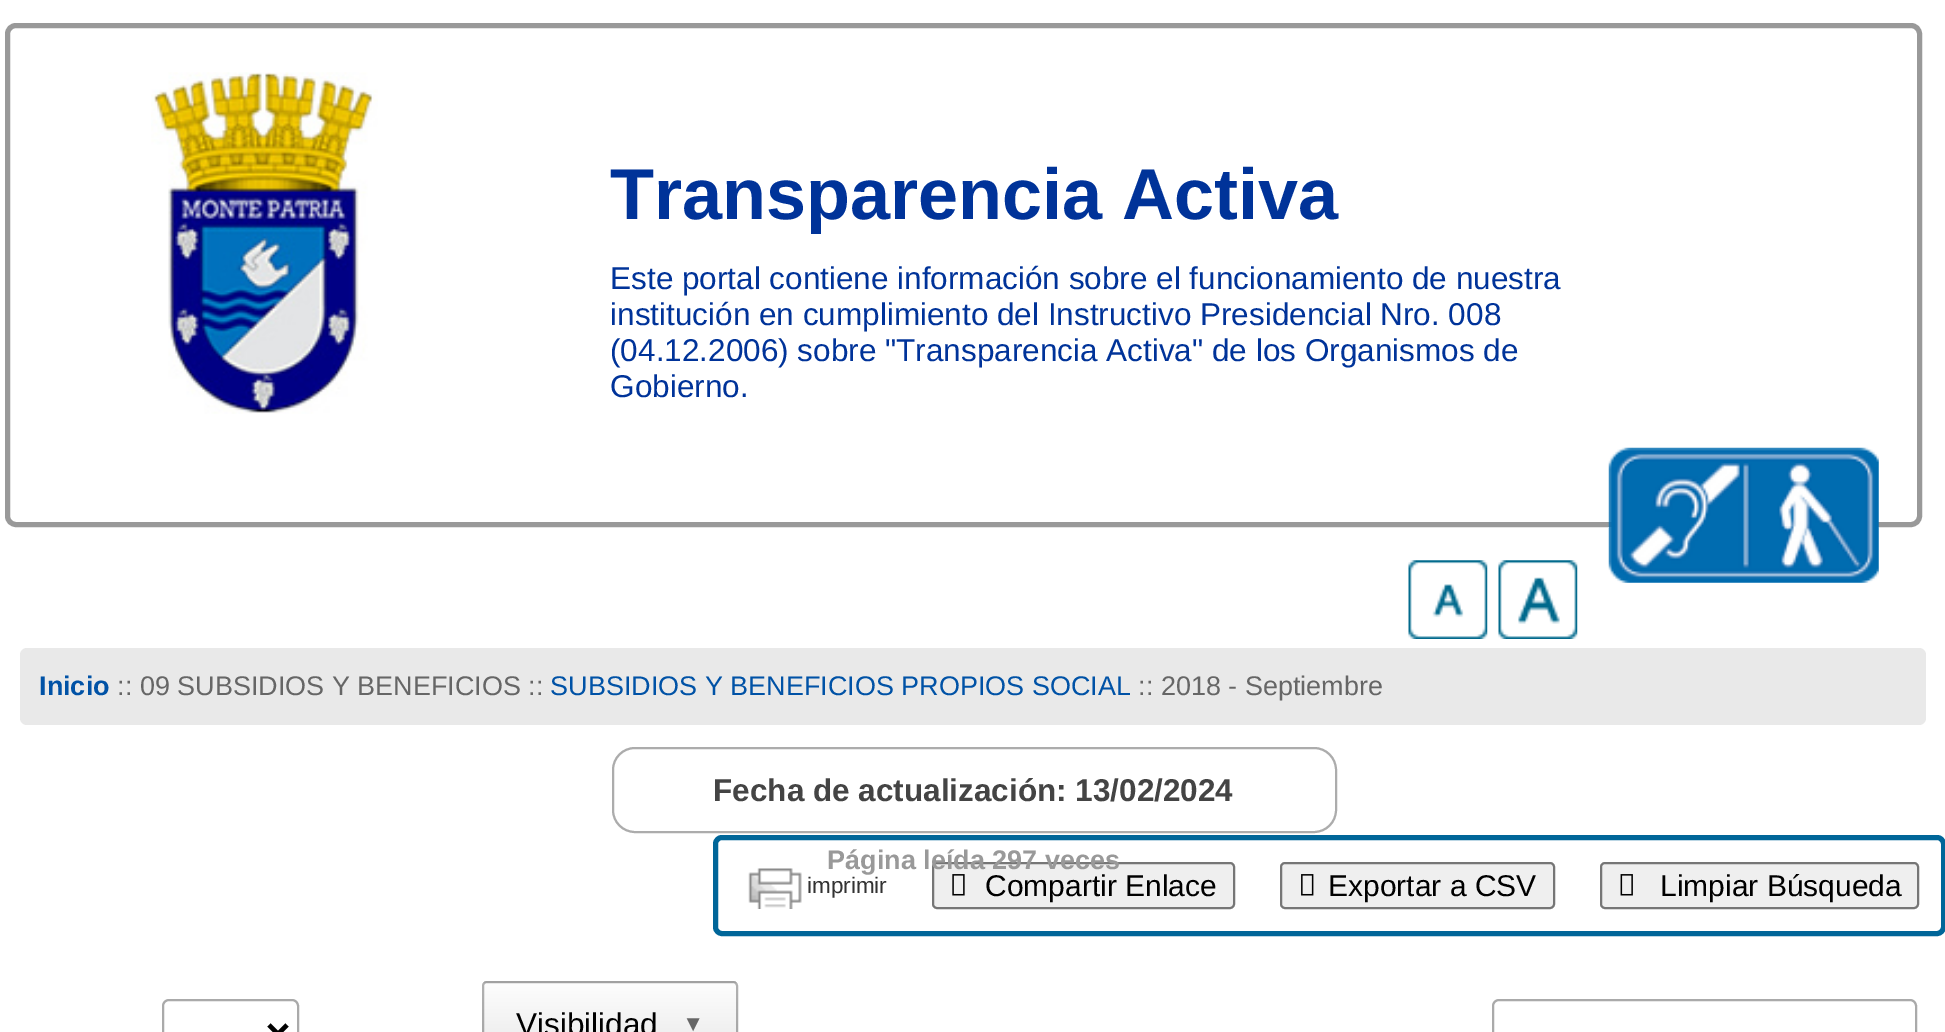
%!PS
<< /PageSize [1945 1032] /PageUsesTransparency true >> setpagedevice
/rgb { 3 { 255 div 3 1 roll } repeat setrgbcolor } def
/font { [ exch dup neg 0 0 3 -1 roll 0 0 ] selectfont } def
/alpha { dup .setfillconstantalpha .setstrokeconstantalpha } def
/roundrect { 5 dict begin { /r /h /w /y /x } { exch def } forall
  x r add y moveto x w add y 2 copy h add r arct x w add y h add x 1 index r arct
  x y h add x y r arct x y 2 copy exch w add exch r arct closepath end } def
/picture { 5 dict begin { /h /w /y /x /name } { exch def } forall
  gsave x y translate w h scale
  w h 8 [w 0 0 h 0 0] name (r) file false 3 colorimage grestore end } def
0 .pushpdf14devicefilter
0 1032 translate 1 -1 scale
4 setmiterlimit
255 255 255 rgb
0 0 1945 1032 rectfill
153 153 153 rgb
5 setlinewidth
7.5 25.5 1912 499 8.5 roundrect stroke
(img/1.rgb) 151 72 227 342 picture
(img/2.rgb) 1608 447 271 136 picture
(img/3.rgb) 1408 560 80 79 picture
(img/4.rgb) 1498 560 80 79 picture
233 233 233 rgb
20 648 1906 77 7 roundrect fill
172 172 172 rgb
2 setlinewidth
613 748 723 84 22 roundrect stroke
0 102 153 rgb
5 setlinewidth
715.5 837.5 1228 96 6.5 roundrect stroke
(img/5.rgb) 748 868 54 41 picture
239 239 239 rgb
933 863 301 45 4 roundrect gsave fill grestore
118 118 118 rgb
2 setlinewidth
stroke
(img/6.rgb) 952 874 13 22 picture
239 239 239 rgb
1281 863 273 45 4 roundrect gsave fill grestore
118 118 118 rgb
stroke
(img/7.rgb) 1301 874 13 22 picture
239 239 239 rgb
1601 863 317 45 4 roundrect gsave fill grestore
118 118 118 rgb
stroke
(img/8.rgb) 1620 874 13 22 picture
170 170 170 rgb
163 1000 135 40 6 roundrect stroke
0 0 0 rgb
4.5 setlinewidth
269 1025 moveto 278 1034 lineto 287 1025 lineto stroke
gsave
482 981 256 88 5 roundrect clip newpath
gsave 482 981 moveto 738 981 lineto 738 983 lineto 482 983 lineto closepath clip newpath
<< /ShadingType 2 /ColorSpace /DeviceRGB /Coords [610 900 610 983] /Extend [true true] /Function << /FunctionType 2 /Domain [0 1] /C0 [0.992 0.992 0.992] /C1 [0.902 0.902 0.902] /N 1 >> >> shfill grestore
gsave 482 983 moveto 738 983 lineto 738 1032 lineto 482 1032 lineto closepath clip newpath
<< /ShadingType 2 /ColorSpace /DeviceRGB /Coords [610 983 610 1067] /Extend [true true] /Function << /FunctionType 2 /Domain [0 1] /C0 [0.992 0.992 0.992] /C1 [0.902 0.902 0.902] /N 1 >> >> shfill grestore
grestore
0.3 alpha
2 setlinewidth
483 982 254 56 4 roundrect stroke
1 alpha
170 170 170 rgb
1493 1000 423 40 6 roundrect stroke
/LiberationSans-Bold 72 font
0 51 153 rgb
610 219 moveto (Transparencia Activa) show
/LiberationSans-Regular 31.5 font
[
  [(Este portal contiene información sobre el funcionamiento de nuestra) 610 289]
  [(institución en cumplimiento del Instructivo Presidencial Nro. 008) 610 325]
  [(\(04.12.2006\) sobre "Transparencia Activa" de los Organismos de) 610 361]
  [(Gobierno.) 610 397]
] { aload pop moveto show } forall
/LiberationSans-Bold 27 font
0 82 166 rgb
39 695 moveto (Inicio) show
/LiberationSans-Regular 27 font
102 102 102 rgb
117 695 moveto (:: 09 SUBSIDIOS Y BENEFICIOS ::) show
0 82 166 rgb
550 695 moveto (SUBSIDIOS Y BENEFICIOS PROPIOS SOCIAL) show
102 102 102 rgb
1138 695 moveto (:: 2018 - Septiembre) show
/LiberationSans-Bold 31.5 font
68 68 68 rgb
713 801 moveto (Fecha de actualización: 13/02/2024) show
/LiberationSans-Bold 27 font
153 153 153 rgb
827 869 moveto (Página leída 297 veces) show
/LiberationSans-Regular 22.5 font
51 51 51 rgb
807 893 moveto (imprimir) show
/LiberationSans-Regular 30 font
0 0 0 rgb
[
  [(Compartir Enlace) 985 896]
  [(Exportar a CSV) 1328 896]
  [(Limpiar Búsqueda) 1660 896]
] { aload pop moveto show } forall
/LiberationSans-Regular 31.5 font
516 1035 moveto (Visibilidad) show
/LiberationSans-Regular 22.5 font
102 102 102 rgb
682 1031 moveto (▼) show
.poppdf14devicefilter showpage
